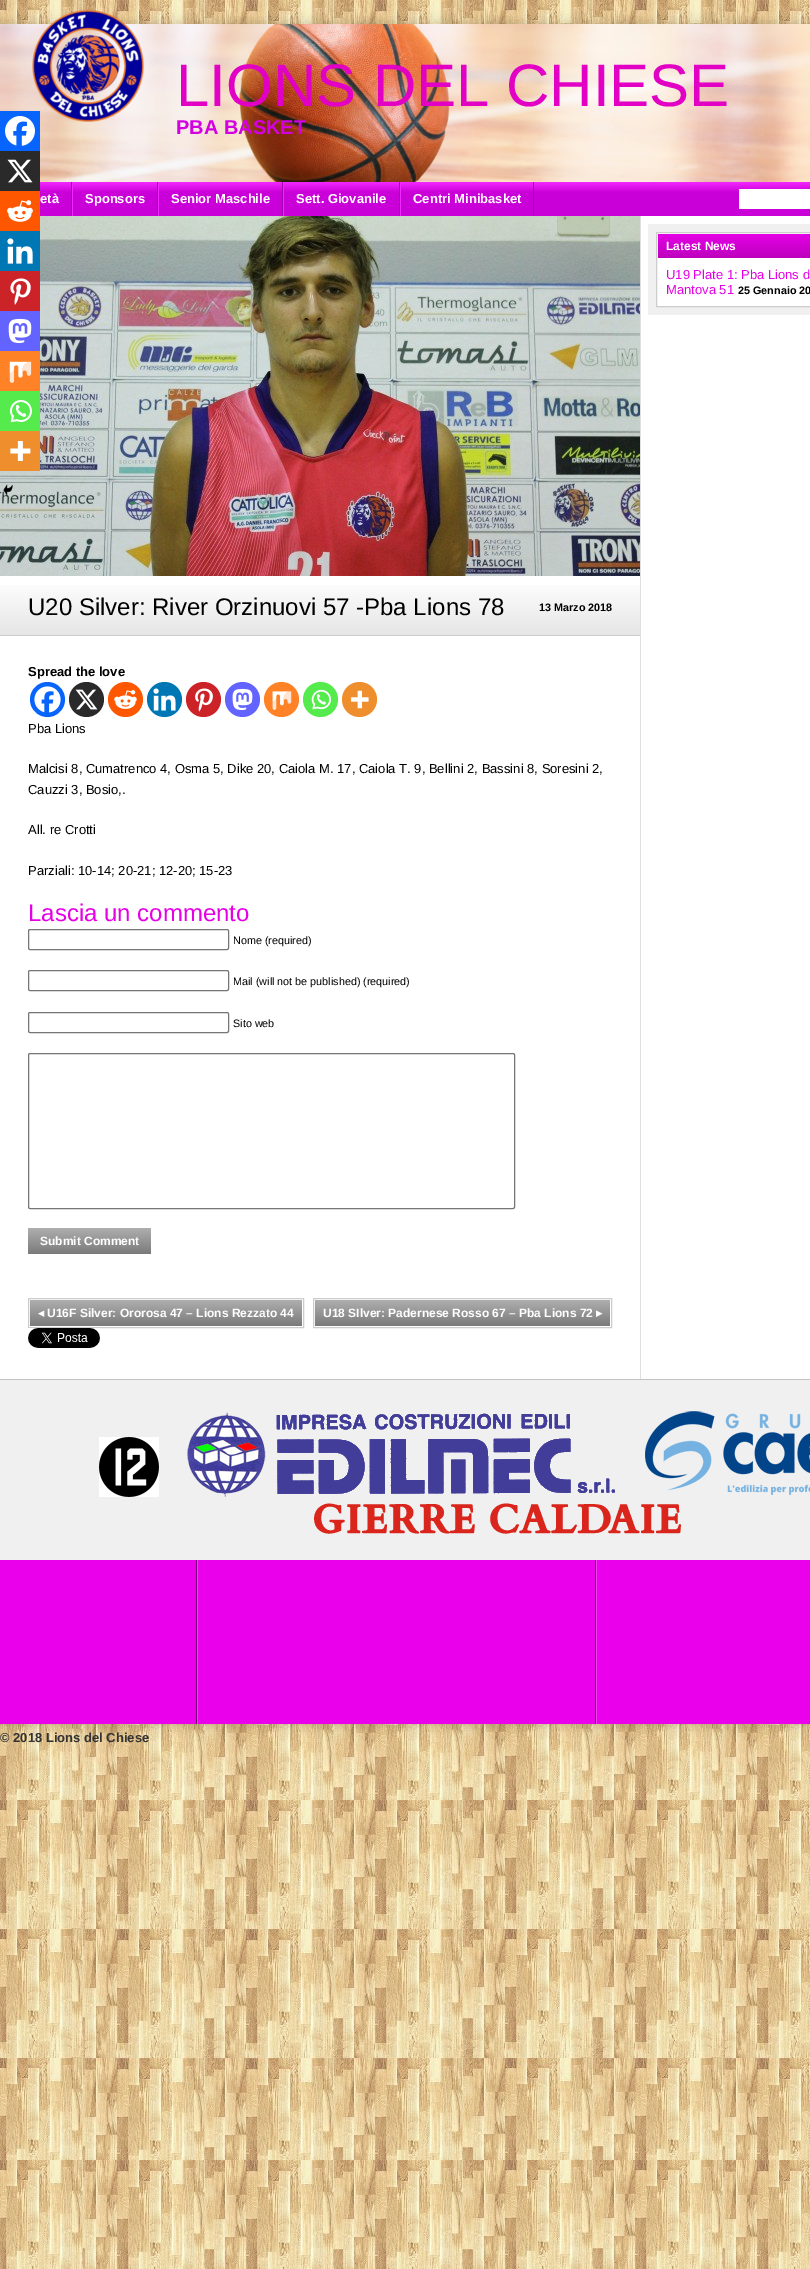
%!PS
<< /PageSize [810 2269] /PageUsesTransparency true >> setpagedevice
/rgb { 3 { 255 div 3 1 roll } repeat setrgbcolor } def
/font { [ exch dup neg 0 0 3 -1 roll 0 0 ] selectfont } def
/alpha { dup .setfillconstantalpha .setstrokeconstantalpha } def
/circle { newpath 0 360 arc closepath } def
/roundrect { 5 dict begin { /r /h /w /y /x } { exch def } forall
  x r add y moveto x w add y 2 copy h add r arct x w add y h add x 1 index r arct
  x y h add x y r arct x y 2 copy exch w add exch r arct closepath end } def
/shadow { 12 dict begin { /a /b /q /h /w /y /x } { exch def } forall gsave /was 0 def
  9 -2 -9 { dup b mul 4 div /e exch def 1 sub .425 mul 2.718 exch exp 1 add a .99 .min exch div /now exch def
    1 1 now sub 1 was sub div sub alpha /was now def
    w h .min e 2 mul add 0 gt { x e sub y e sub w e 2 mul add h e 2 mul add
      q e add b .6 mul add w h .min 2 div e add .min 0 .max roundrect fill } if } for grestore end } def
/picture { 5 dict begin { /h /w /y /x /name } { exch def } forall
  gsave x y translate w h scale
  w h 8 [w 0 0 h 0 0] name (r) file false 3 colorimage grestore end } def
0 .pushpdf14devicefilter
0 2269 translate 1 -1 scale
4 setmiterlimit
255 255 255 rgb
0 0 810 2269 rectfill
(img/1.rgb) 0 0 810 2269 picture
0 0 0 rgb
0 24 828 1700 0 6 0.2 shadow
255 255 255 rgb
0 216 810 1163 rectfill
(img/2.rgb) 0 24 810 158 picture
(img/3.rgb) 31 9 114 113 picture
gsave 40 182 moveto 810 182 lineto 810 216 lineto 40 216 lineto closepath clip newpath
<< /ShadingType 2 /ColorSpace /DeviceRGB /Coords [0 182 0 216] /Extend [true true] /Function << /FunctionType 3 /Domain [0 1] /Functions [<< /FunctionType 2 /Domain [0 1] /C0 [0.949 0.157 1] /C1 [0.792 0 0.847] /N 1 >> << /FunctionType 2 /Domain [0 1] /C0 [0.792 0 0.847] /C1 [0.792 0 0.847] /N 1 >>] /Bounds [0.3] /Encode [0 1 0 1] >> >> shfill grestore
[
  [71 182 1 34 162 0 176]
  [157 182 1 34 162 0 176]
  [72 182 1 34 242 40 255]
  [282 182 1 34 162 0 176]
  [158 182 1 34 242 40 255]
  [399 182 1 34 162 0 176]
  [283 182 1 34 242 40 255]
  [533 182 1 34 162 0 176]
  [400 182 1 34 242 40 255]
  [739 189 71 20 255 255 255]
  [640 216 1 1163 223 223 223]
  [648 224 162 91 240 240 240]
] { aload pop rgb rectfill } forall
255 255 255 rgb
656.5 232.5 moveto 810.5 232.5 lineto 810.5 306.5 lineto 656.5 306.5 lineto closepath gsave fill grestore
204 204 204 rgb
stroke
gsave 658 234 moveto 810 234 lineto 810 258 lineto 658 258 lineto closepath clip newpath
<< /ShadingType 2 /ColorSpace /DeviceRGB /Coords [658 234 658 258] /Extend [true true] /Function << /FunctionType 2 /Domain [0 1] /C0 [0.898 0 0.898] /C1 [0.741 0 0.741] /N 1 >> >> shfill grestore
(img/4.rgb) 0 216 640 360 picture
gsave 0 585 moveto 640 585 lineto 640 635 lineto 0 635 lineto closepath clip newpath
<< /ShadingType 2 /ColorSpace /DeviceRGB /Coords [0 579 0 635] /Extend [true true] /Function << /FunctionType 2 /Domain [0 1] /C0 [1 1 1] /C1 [0.902 0.902 0.902] /N 1 >> >> shfill grestore
0 635 640 1 rectfill
7 101 254 rgb
0 111 40 40 rectfill
(img/5.rgb) 5 116 30 30 picture
42 42 42 rgb
0 151 40 40 rectfill
(img/6.rgb) 7 159 26 24 picture
255 87 0 rgb
0 191 40 40 rectfill
(img/7.rgb) 7 200 26 22 picture
0 119 181 rgb
0 231 40 40 rectfill
(img/8.rgb) 7 238 26 26 picture
204 35 41 rgb
0 271 40 40 rectfill
(img/9.rgb) 10 278 21 27 picture
99 100 255 rgb
0 311 40 40 rectfill
(img/10.rgb) 8 318 24 26 picture
255 130 38 rgb
0 351 40 40 rectfill
(img/11.rgb) 9 361 23 22 picture
85 235 76 rgb
0 391 40 40 rectfill
(img/12.rgb) 10 400 22 23 picture
238 142 45 rgb
0 431 40 40 rectfill
(img/13.rgb) 10 441 21 20 picture
(img/14.rgb) 3 484 10 12 picture
7 101 254 rgb
47.5 699.5 17.5 circle fill
(img/15.rgb) 34 686 27 27 picture
42 42 42 rgb
86.5 699.5 17.5 circle fill
(img/16.rgb) 75 689 23 21 picture
255 87 0 rgb
125.5 699.5 17.5 circle fill
(img/17.rgb) 114 690 23 19 picture
0 119 181 rgb
164.5 699.5 17.5 circle fill
(img/18.rgb) 153 688 23 23 picture
204 35 41 rgb
203.5 699.5 17.5 circle fill
(img/19.rgb) 195 688 18 24 picture
99 100 255 rgb
242.5 699.5 17.5 circle fill
(img/20.rgb) 232 688 21 23 picture
255 130 38 rgb
281.5 699.5 17.5 circle fill
(img/21.rgb) 272 691 20 19 picture
85 235 76 rgb
320.5 699.5 17.5 circle fill
(img/22.rgb) 311 689 20 21 picture
238 142 45 rgb
359.5 699.5 17.5 circle fill
(img/23.rgb) 351 690 18 19 picture
118 118 118 rgb
28.5 929.5 200 20 1.5 roundrect stroke
28.5 970.5 200 20 1.5 roundrect stroke
28.5 1012.5 200 20 1.5 roundrect stroke
28.5 1053.5 486 155 1.5 roundrect stroke
gsave 28 1228 moveto 151 1228 lineto 151 1254 lineto 28 1254 lineto closepath clip newpath
<< /ShadingType 2 /ColorSpace /DeviceRGB /Coords [28 1228 28 1254] /Extend [true true] /Function << /FunctionType 2 /Domain [0 1] /C0 [0.682 0.682 0.682] /C1 [0.478 0.478 0.478] /N 1 >> >> shfill grestore
204 204 204 rgb
28.5 1298.5 275 29 rectstroke
gsave 30 1300 moveto 302 1300 lineto 302 1326 lineto 30 1326 lineto closepath clip newpath
<< /ShadingType 2 /ColorSpace /DeviceRGB /Coords [30 1300 30 1326] /Extend [true true] /Function << /FunctionType 2 /Domain [0 1] /C0 [0.682 0.682 0.682] /C1 [0.478 0.478 0.478] /N 1 >> >> shfill grestore
313.5 1298.5 298 29 rectstroke
gsave 315 1300 moveto 610 1300 lineto 610 1326 lineto 315 1326 lineto closepath clip newpath
<< /ShadingType 2 /ColorSpace /DeviceRGB /Coords [315 1300 315 1326] /Extend [true true] /Function << /FunctionType 2 /Domain [0 1] /C0 [0.682 0.682 0.682] /C1 [0.478 0.478 0.478] /N 1 >> >> shfill grestore
(img/24.rgb) 28 1328 72 20 picture
240 240 240 rgb
0 1380 810 180 rectfill
195 195 195 rgb
0 1379 810 1 rectfill
(img/25.rgb) 99 1437 60 60 picture
(img/26.rgb) 187 1412 428 85 picture
(img/27.rgb) 645 1411 165 84 picture
(img/28.rgb) 314 1503 367 31 picture
234 0 234 rgb
0 1560 810 164 rectfill
(img/29.rgb) 196 1560 401 164 picture
/LiberationSans-Regular 60 font
226 0 196 rgb
176 106 moveto (LIONS DEL CHIESE) show
/LiberationSans-Bold 20 font
211 0 226 rgb
176 134 moveto (PBA BASKET) show
/LiberationSans-Bold 13 font
255 255 255 rgb
[
  [(età) 40 203]
  [(Sponsors) 85 203]
  [(Senior Maschile) 171 203]
  [(Sett. Giovanile) 296 203]
  [(Centri Minibasket) 413 203]
] { aload pop moveto show } forall
/LiberationSans-Bold 12 font
666 250 moveto (Latest News) show
/LiberationSans-Regular 13 font
229 0 229 rgb
666 279 moveto (U19 Plate 1: Pba Lions d) show
666 294 moveto (Mantova 51) show
/LiberationSans-Bold 10.8 font
0 0 0 rgb
738 294 moveto (25 Gennaio 20) show
/LiberationSans-Regular 24 font
28 615 moveto (U20 Silver: River Orzinuovi 57 -Pba Lions 78) show
/LiberationSans-Bold 10.8 font
539 611 moveto (13 Marzo 2018) show
/LiberationSans-Bold 13 font
28 676 moveto (Spread the love) show
/LiberationSans-Regular 13 font
[
  [(Pba Lions) 28 733]
  [(Malcisi 8, Cumatrenco 4, Osma 5, Dike 20, Caiola M. 17, Caiola T. 9, Bellini 2, Bassini 8, Soresini 2,) 28 773]
  [(Cauzzi 3, Bosio,.) 28 794]
  [(All. re Crotti) 28 834]
  [(Parziali: 10-14; 20-21; 12-20; 15-23) 28 875]
] { aload pop moveto show } forall
/LiberationSans-Regular 24 font
229 0 229 rgb
28 921 moveto (Lascia un commento) show
/LiberationSans-Regular 10.8 font
0 0 0 rgb
[
  [(Nome \(required\)) 233 944]
  [(Mail \(will not be published\) \(required\)) 233 985]
  [(Sito web) 233 1027]
] { aload pop moveto show } forall
/LiberationSans-Bold 12 font
255 255 255 rgb
40 1245 moveto (Submit Comment) show
/DejaVuSans-Bold 12 font
38 1317 moveto (◂) show
/LiberationSans-Bold 12 font
47 1317 moveto (U16F Silver: Ororosa 47 – Lions Rezzato 44) show
323 1317 moveto (U18 SIlver: Padernese Rosso 67 – Pba Lions 72) show
/DejaVuSans-Bold 12 font
596 1317 moveto (▸) show
/LiberationSans-Bold 13 font
51 51 51 rgb
0 1742 moveto (© 2018 Lions del Chiese) show
.poppdf14devicefilter showpage
